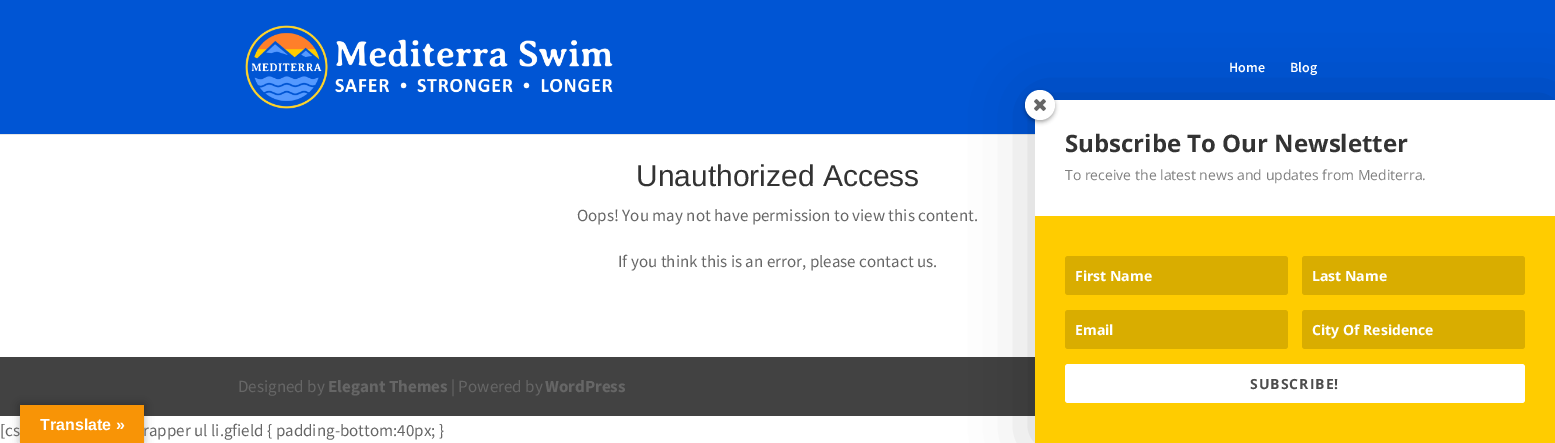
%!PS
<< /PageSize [1555 443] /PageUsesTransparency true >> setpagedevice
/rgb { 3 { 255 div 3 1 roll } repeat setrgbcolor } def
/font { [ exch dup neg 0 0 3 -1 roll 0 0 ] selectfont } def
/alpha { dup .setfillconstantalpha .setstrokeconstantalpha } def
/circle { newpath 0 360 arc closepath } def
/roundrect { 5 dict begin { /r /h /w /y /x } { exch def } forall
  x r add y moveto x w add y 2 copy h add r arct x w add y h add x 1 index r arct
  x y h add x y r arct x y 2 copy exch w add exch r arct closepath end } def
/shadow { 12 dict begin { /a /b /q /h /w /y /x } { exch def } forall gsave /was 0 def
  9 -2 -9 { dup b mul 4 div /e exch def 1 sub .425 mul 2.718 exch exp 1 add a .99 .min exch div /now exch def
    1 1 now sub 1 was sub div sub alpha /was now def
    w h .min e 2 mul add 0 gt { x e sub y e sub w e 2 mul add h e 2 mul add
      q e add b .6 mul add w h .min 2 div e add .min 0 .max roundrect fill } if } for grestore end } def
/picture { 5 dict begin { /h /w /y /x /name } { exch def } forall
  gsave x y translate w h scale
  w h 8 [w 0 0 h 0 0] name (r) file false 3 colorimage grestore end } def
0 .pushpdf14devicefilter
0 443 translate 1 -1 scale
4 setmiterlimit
255 255 255 rgb
0 0 1555 443 rectfill
230 230 230 rgb
0 134 1035 1 rectfill
0 85 212 rgb
0 0 1555 134 rectfill
(img/1.rgb) 245 25 368 84 picture
66 66 66 rgb
0 357 1035 59 rectfill
0 0 0 rgb
1035 100 520 343 0 30 0.2 shadow
255 255 255 rgb
1035 100 520 116 rectfill
0 0 0 rgb
1025 92 30 30 15 2 0.34 shadow
255 255 255 rgb
1040 105 15 circle fill
(img/2.rgb) 1034 99 12 12 picture
255 204 0 rgb
1035 216 520 227 rectfill
217 173 0 rgb
1065 256 223 39 3 roundrect fill
1302 256 223 39 3 roundrect fill
1065 310 223 39 3 roundrect fill
1302 310 223 39 3 roundrect fill
255 255 255 rgb
1065 364 460 39 3 roundrect fill
0 0 0 rgb
20 405 124 38 0 4.5 0.3 shadow
248 148 6 rgb
20 405 124 38 rectfill
/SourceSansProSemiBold-SemiBold 14 font
255 255 255 rgb
1229 72 moveto (Home) show
1290 72 moveto (Blog) show
/LiberationSans-Regular 30 font
51 51 51 rgb
636 186 moveto (Unauthorized Access) show
/SourceSansPro-Regular 17 font
102 102 102 rgb
[
  [(Oops! You may not have permission to view this content.) 577 221]
  [(If you think this is an error, please contact us.) 618 267]
  [(Designed by) 238 392]
] { aload pop moveto show } forall
/SourceSansPro-Bold 17 font
328 392 moveto (Elegant Themes) show
/SourceSansPro-Regular 17 font
451 392 moveto (| Powered by) show
/SourceSansPro-Bold 17 font
545 392 moveto (WordPress) show
/OpenSans-Bold 24 font
51 51 51 rgb
1065 152 moveto (Subscribe To Our Newsletter) show
/OpenSans-Regular 14 font
128 128 128 rgb
1065 180 moveto (To receive the latest news and updates from Mediterra.) show
/OpenSans-Bold 14 font
255 255 255 rgb
[
  [(First Name) 1075 281]
  [(Last Name) 1312 281]
  [(Email) 1075 335]
  [(City Of Residence) 1312 335]
] { aload pop moveto show } forall
77 77 77 rgb
1250 389 moveto 1 0 (SUBSCRIBE!) ashow
/SourceSansPro-Regular 17 font
102 102 102 rgb
0 436 moveto ([cs) show
/LiberationSans-Bold 16 font
255 255 255 rgb
40 430 moveto (Translate ») show
/SourceSansPro-Regular 17 font
102 102 102 rgb
143 436 moveto (rapper ul li.gfield { padding-bottom:40px; }) show
.poppdf14devicefilter showpage
